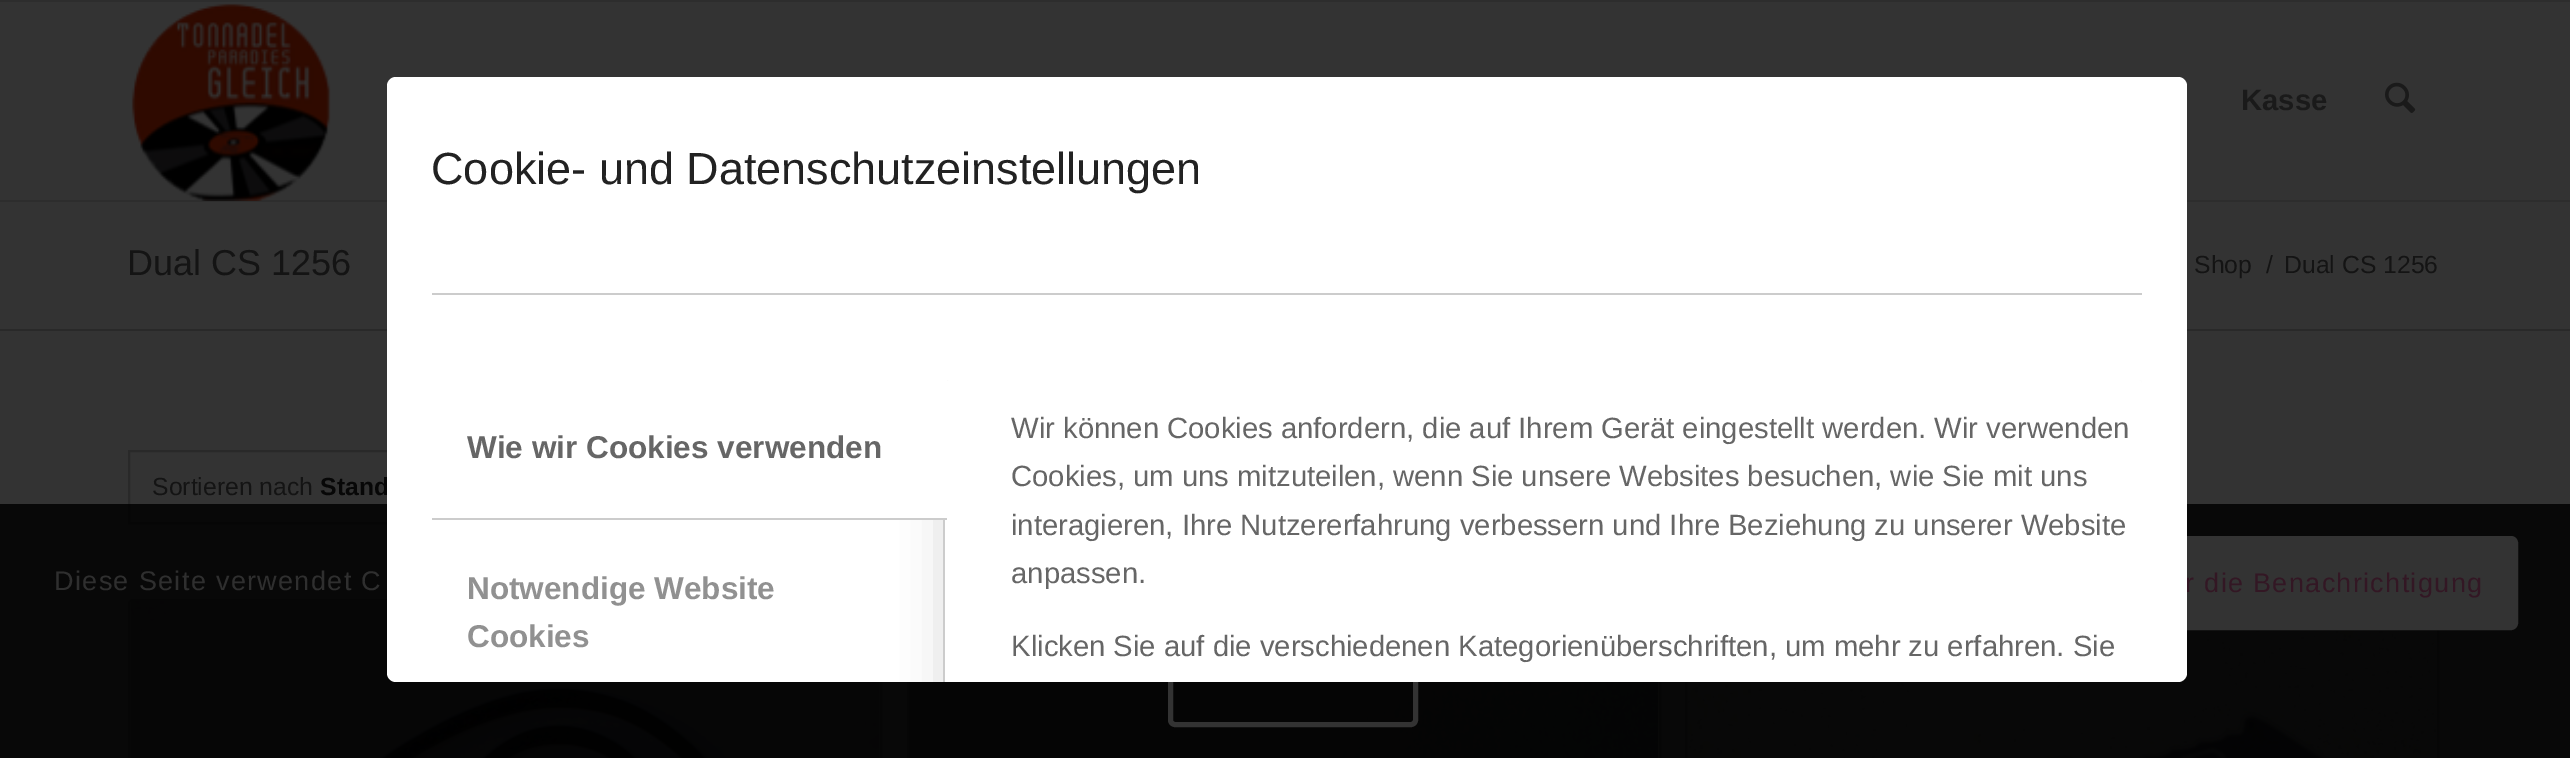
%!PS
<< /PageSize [2570 758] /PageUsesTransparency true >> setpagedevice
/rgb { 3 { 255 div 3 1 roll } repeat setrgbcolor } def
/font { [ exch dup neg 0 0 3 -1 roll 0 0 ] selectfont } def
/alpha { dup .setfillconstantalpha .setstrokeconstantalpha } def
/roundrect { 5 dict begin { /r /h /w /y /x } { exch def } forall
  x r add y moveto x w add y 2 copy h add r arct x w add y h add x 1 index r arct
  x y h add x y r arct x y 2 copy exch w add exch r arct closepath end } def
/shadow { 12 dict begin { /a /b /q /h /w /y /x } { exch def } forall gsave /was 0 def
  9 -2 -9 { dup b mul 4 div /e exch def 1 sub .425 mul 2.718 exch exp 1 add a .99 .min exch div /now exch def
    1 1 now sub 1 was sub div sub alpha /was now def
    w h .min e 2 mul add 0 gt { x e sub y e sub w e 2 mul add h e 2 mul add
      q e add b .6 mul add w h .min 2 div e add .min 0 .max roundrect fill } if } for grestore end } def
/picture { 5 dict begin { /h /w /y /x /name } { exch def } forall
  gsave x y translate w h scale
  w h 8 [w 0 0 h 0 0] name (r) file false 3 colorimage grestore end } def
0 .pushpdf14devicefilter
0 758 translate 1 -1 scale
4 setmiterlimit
51 51 51 rgb
0 0 2570 758 rectfill
45 45 45 rgb
0 0 2570 2 rectfill
0 200 2570 2 rectfill
(img/1.rgb) 131 3 200 198 picture
(img/2.rgb) 2385 82 31 31 picture
41 41 41 rgb
0 329 2570 2 rectfill
2 setlinewidth
129 451 390 72 rectstroke
129 600 752 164 4 roundrect stroke
(img/3.rgb) 130 601 750 157 picture
908 600 752 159 rectstroke
(img/4.rgb) 909 682 749 76 picture
1686 600 752 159 rectstroke
(img/5.rgb) 1688 630 748 128 picture
0.85 alpha
0 0 0 rgb
0 504 2570 254 rectfill
1 alpha
51 51 51 rgb
1989.5 538.5 526 89 4.5 roundrect gsave fill grestore
5 setlinewidth
stroke
1170.5 632.5 245 92 4.5 roundrect stroke
/LiberationSans-Bold 29.25 font
26 26 26 rgb
2241 110 moveto (Kasse) show
/LiberationSans-Regular 36 font
20 20 20 rgb
127 275 moveto (Dual CS 1256) show
/LiberationSans-Regular 24.75 font
[
  [(Shop) 2194 273]
  [(/) 2266 273]
  [(Dual CS 1256) 2284 273]
  [(Sortieren nach) 152 495]
] { aload pop moveto show } forall
/LiberationSans-Bold 24.75 font
7 7 7 rgb
320 495 moveto (Stand) show
/LiberationSans-Regular 27 font
47 47 47 rgb
54 590 moveto 1.35 0 (Diese Seite verwendet C) ashow
51 23 36 rgb
2185 592 moveto 1.35 0 (r die Benachrichtigung) ashow
255 255 255 rgb
387 77 1800 605 9 roundrect fill
gsave
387 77 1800 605 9 roundrect clip newpath
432 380 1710 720 rectclip
0 0 0 rgb
950 403 1152 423 0 22.5 0.2 shadow
grestore
204 204 204 rgb
943 518 2 164 rectfill
255 255 255 rgb
950 380 moveto 2137 380 lineto 2140 380 2142 382 2142 385 curveto 2142 682 lineto 945 682 lineto 945 385 lineto 945 382 947 380 950 380 curveto closepath fill
437 380 moveto 947 380 lineto 947 520 lineto 432 520 lineto 432 385 lineto 432 382 434 380 437 380 curveto closepath fill
/LiberationSans-Bold 31.5 font
102 102 102 rgb
467 458 moveto (Wie wir Cookies verwenden) show
204 204 204 rgb
432 518 515 2 rectfill
145 145 145 rgb
467 647 moveto (Cookies) show
467 599 moveto (Notwendige Website) show
/LiberationSans-Regular 29.25 font
102 102 102 rgb
[
  [(Klicken Sie auf die verschiedenen Kategorienüberschriften, um mehr zu erfahren. Sie) 1011 656]
  [(anpassen.) 1011 583]
  [(interagieren, Ihre Nutzererfahrung verbessern und Ihre Beziehung zu unserer Website) 1011 535]
  [(Cookies, um uns mitzuteilen, wenn Sie unsere Websites besuchen, wie Sie mit uns) 1011 486]
  [(Wir können Cookies anfordern, die auf Ihrem Gerät eingestellt werden. Wir verwenden) 1011 438]
] { aload pop moveto show } forall
204 204 204 rgb
432 293 1710 2 rectfill
/LiberationSans-Regular 45 font
34 34 34 rgb
431 184 moveto (Cookie- und Datenschutzeinstellungen) show
.poppdf14devicefilter showpage
